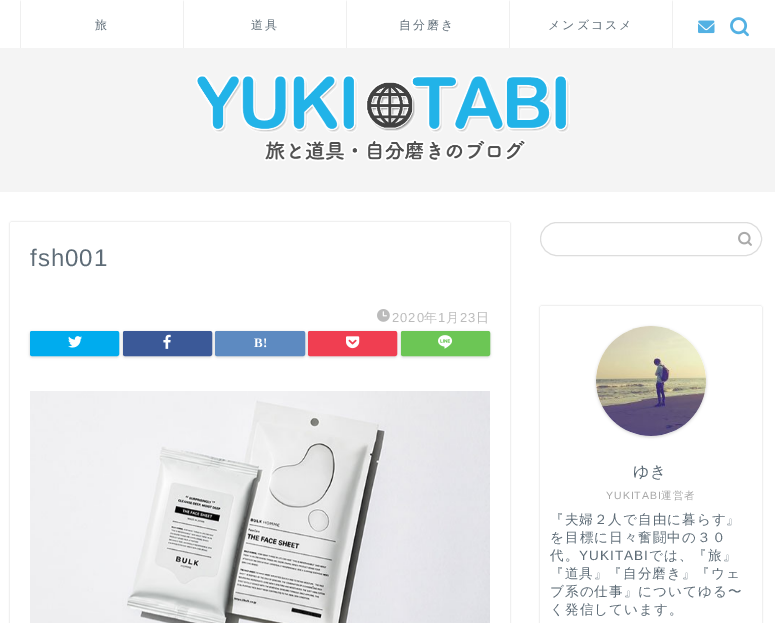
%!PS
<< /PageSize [775 623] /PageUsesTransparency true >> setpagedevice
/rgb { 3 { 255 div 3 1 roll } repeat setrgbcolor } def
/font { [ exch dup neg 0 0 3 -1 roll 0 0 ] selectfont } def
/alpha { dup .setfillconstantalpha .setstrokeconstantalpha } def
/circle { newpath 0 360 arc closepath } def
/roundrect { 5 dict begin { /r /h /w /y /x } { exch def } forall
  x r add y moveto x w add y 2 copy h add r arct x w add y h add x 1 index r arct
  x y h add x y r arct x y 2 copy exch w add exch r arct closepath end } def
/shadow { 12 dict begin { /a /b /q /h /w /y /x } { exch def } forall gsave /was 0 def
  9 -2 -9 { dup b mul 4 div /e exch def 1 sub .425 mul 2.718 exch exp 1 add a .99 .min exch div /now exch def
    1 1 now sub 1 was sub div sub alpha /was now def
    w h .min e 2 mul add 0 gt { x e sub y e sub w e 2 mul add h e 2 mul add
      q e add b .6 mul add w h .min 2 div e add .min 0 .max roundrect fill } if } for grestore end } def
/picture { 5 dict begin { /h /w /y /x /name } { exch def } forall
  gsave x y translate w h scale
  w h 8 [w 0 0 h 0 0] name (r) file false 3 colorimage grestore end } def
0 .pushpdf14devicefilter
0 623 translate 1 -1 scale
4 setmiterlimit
255 255 255 rgb
0 0 775 623 rectfill
239 239 239 rgb
20 48 moveto 20 0 lineto 21 2 lineto 21 48 lineto closepath fill
183 48 moveto 183 0 lineto 184 2 lineto 184 48 lineto closepath fill
346 48 moveto 346 0 lineto 347 2 lineto 347 48 lineto closepath fill
673 0 moveto 673 48 lineto 672 48 lineto 672 2 lineto closepath fill
509 48 moveto 509 0 lineto 510 2 lineto 510 48 lineto closepath fill
(img/1.rgb) 698 20 17 14 picture
(img/2.rgb) 730 17 19 20 picture
244 244 244 rgb
0 48 775 144 rectfill
(img/3.rgb) 196 75 374 87 picture
0 0 0 rgb
10 222 500 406 2 1 0.18 shadow
255 255 255 rgb
10 222 500 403 2 roundrect fill
(img/4.rgb) 377 309 13 13 picture
0 0 0 rgb
30 332 89 25 2 1.5 0.18 shadow
0 172 238 rgb
31 332 87 23 1 roundrect gsave fill grestore
2 setlinewidth
stroke
(img/5.rgb) 68 336 14 12 picture
0 0 0 rgb
123 332 89 25 2 1.5 0.18 shadow
59 89 152 rgb
124 332 87 23 1 roundrect gsave fill grestore
stroke
(img/6.rgb) 163 334 8 15 picture
0 0 0 rgb
215 332 90 25 2 1.5 0.18 shadow
93 138 193 rgb
216 332 88 23 1 roundrect gsave fill grestore
stroke
0 0 0 rgb
308 332 89 25 2 1.5 0.18 shadow
240 62 81 rgb
309 332 87 23 1 roundrect gsave fill grestore
stroke
(img/7.rgb) 346 336 14 13 picture
0 0 0 rgb
401 332 89 25 2 1.5 0.18 shadow
108 198 85 rgb
402 332 87 23 1 roundrect gsave fill grestore
stroke
(img/8.rgb) 438 335 15 14 picture
(img/9.rgb) 30 391 460 232 picture
221 221 221 rgb
1 setlinewidth
540.5 222.5 221 33 16.5 roundrect stroke
(img/10.rgb) 738 231 14 15 picture
0 0 0 rgb
540 306 222 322 2 1 0.18 shadow
255 255 255 rgb
540 306 222 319 2 roundrect fill
0 0 0 rgb
596 327 110 110 55 1.5 0.18 shadow
255 255 255 rgb
651 381 55 circle fill
(img/11.rgb) 596 326 110 110 picture
/WenQuanYiZenHei-Medium 12 font
94 108 119 rgb
95 29 moveto 2 0 (旅) ashow
251 29 moveto 2 0 (道具) ashow
399 29 moveto 2 0 (自分磨き) ashow
548 29 moveto 2 0 (メンズコスメ) ashow
/LiberationSans-Regular 24 font
30 266 moveto 1 0 (fsh001) ashow
/LiberationSans-Regular 13 font
187 187 187 rgb
392 322 moveto 1 0 (2020) ashow
/WenQuanYiZenHei-Medium 13 font
424 322 moveto 1 0 (年) ashow
/LiberationSans-Regular 13 font
438 322 moveto 1 0 (1) ashow
/WenQuanYiZenHei-Medium 13 font
446 322 moveto 1 0 (月) ashow
/LiberationSans-Regular 13 font
460 322 moveto 1 0 (23) ashow
/WenQuanYiZenHei-Medium 13 font
476 322 moveto 1 0 (日) ashow
/LiberationSerif-Bold 13 font
255 255 255 rgb
254 347 moveto (B!) show
/WenQuanYiZenHei-Medium 16 font
94 108 119 rgb
633 477 moveto 1 0 (ゆき) ashow
/LiberationSans-Regular 10.5 font
166 166 166 rgb
606 499 moveto 1 0 (YUKITABI) ashow
/WenQuanYiZenHei-Medium 10.5 font
661 499 moveto 1 0 (運営者) ashow
/WenQuanYiZenHei-Medium 13.6 font
94 108 119 rgb
550 524 moveto 1 0 (『夫婦２人で自由に暮らす』) ashow
550 542 moveto 1 0 (を目標に日々奮闘中の３０) ashow
550 560 moveto 1 0 (代。) ashow
/LiberationSans-Regular 13.6 font
579 560 moveto 1 0 (YUKITABI) ashow
/WenQuanYiZenHei-Medium 13.6 font
649 560 moveto 1 0 (では、『旅』) ashow
550 578 moveto 1 0 (『道具』『自分磨き』『ウェ) ashow
550 596 moveto 1 0 (ブ系の仕事』についてゆる〜) ashow
550 614 moveto 1 0 (く発信しています。) ashow
.poppdf14devicefilter showpage
